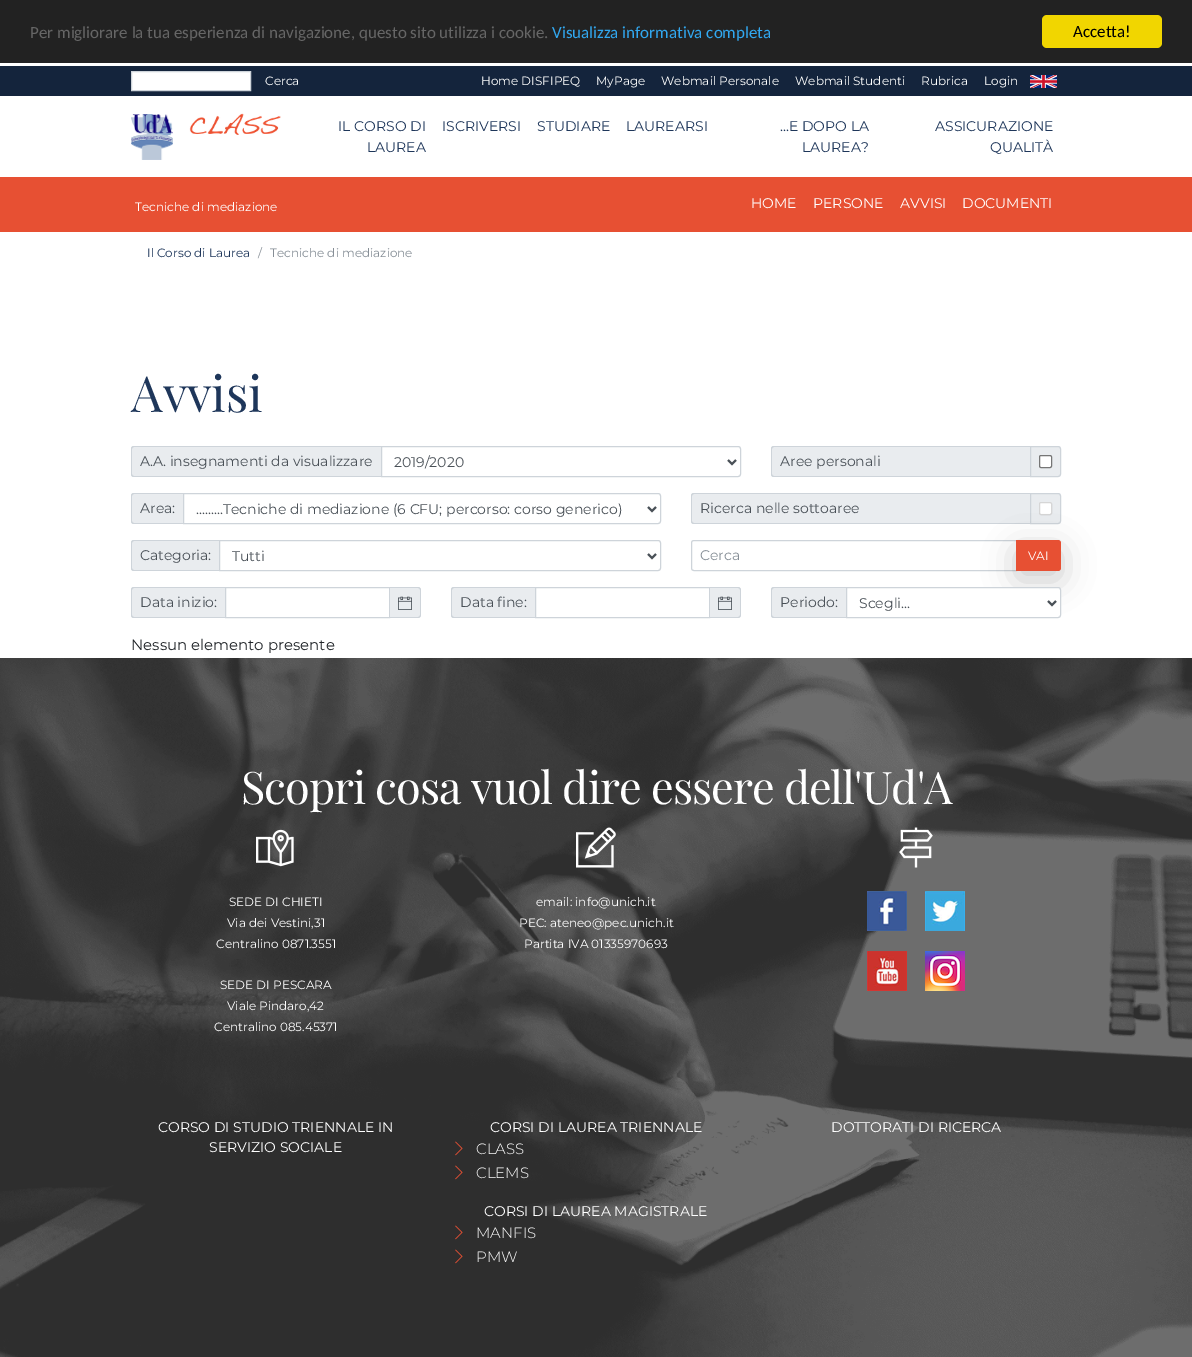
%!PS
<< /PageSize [1192 1357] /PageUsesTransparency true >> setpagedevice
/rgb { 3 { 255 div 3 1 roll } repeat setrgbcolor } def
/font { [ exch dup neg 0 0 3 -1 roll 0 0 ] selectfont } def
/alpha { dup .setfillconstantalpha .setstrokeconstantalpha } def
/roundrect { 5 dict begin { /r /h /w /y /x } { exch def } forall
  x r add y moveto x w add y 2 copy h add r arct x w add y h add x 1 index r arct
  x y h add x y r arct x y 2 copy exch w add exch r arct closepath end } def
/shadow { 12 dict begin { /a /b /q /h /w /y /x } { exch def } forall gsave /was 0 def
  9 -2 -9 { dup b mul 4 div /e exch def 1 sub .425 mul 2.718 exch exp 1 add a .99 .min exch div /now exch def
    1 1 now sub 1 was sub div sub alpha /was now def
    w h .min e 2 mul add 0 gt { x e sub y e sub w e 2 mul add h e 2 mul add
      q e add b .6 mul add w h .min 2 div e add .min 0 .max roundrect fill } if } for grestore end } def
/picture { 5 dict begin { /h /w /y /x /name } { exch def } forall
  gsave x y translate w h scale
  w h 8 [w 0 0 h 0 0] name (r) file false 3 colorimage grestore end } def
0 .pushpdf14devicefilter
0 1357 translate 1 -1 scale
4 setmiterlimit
255 255 255 rgb
0 0 1192 1357 rectfill
34 34 34 rgb
0 0 1192 63 rectfill
241 214 0 rgb
1042 15 120 33 5 roundrect fill
20 36 60 rgb
0 66 1192 30 rectfill
255 255 255 rgb
131.5 71.5 moveto 250.5 71.5 lineto 250.5 90.5 lineto 131.5 90.5 lineto closepath gsave fill grestore
206 212 218 rgb
stroke
(img/1.rgb) 1030 75 27 13 picture
231 80 51 rgb
0 177 1192 55 rectfill
(img/2.rgb) 131 114 42 46 picture
(img/3.rgb) 189 113 92 22 picture
233 236 239 rgb
134 446 moveto 381 446 lineto 381 477 lineto 134 477 lineto 132.5 477 131 475.5 131 474 curveto 131 449 lineto 131 447.5 132.5 446 134 446 curveto closepath fill
206 212 218 rgb
134 446 moveto 381 446 lineto 381 477 lineto 134 477 lineto 132 477 131 476 131 474 curveto 131 449 lineto 131 447 132 446 134 446 curveto closepath 134 447 moveto 381 447 lineto 381 476 lineto 134 476 lineto 133 476 132 475 132 474 curveto 132 449 lineto 132 448 133 447 134 447 curveto closepath eofill
381.5 446.5 moveto 738 446.5 lineto 739.5 446.5 740.5 447.5 740.5 449 curveto 740.5 474 lineto 740.5 475.5 739.5 476.5 738 476.5 curveto 381.5 476.5 lineto closepath stroke
73 80 87 rgb
2 setlinewidth
728 460 moveto 732 464 lineto 736 460 lineto stroke
233 236 239 rgb
774 446 moveto 1030 446 lineto 1030 477 lineto 774 477 lineto 772.5 477 771 475.5 771 474 curveto 771 449 lineto 771 447.5 772.5 446 774 446 curveto closepath fill
206 212 218 rgb
774 446 moveto 1030 446 lineto 1030 477 lineto 774 477 lineto 772 477 771 476 771 474 curveto 771 449 lineto 771 447 772 446 774 446 curveto closepath 774 447 moveto 1030 447 lineto 1030 476 lineto 774 476 lineto 773 476 772 475 772 474 curveto 772 449 lineto 772 448 773 447 774 447 curveto closepath eofill
233 236 239 rgb
1030.5 446.5 moveto 1058 446.5 lineto 1059.5 446.5 1060.5 447.5 1060.5 449 curveto 1060.5 474 lineto 1060.5 475.5 1059.5 476.5 1058 476.5 curveto 1030.5 476.5 lineto closepath gsave fill grestore
206 212 218 rgb
1 setlinewidth
stroke
255 255 255 rgb
1039.5 455.5 12 12 1.5 roundrect gsave fill grestore
118 118 118 rgb
stroke
233 236 239 rgb
134 493 moveto 183 493 lineto 183 524 lineto 134 524 lineto 132.5 524 131 522.5 131 521 curveto 131 496 lineto 131 494.5 132.5 493 134 493 curveto closepath fill
206 212 218 rgb
134 493 moveto 183 493 lineto 183 524 lineto 134 524 lineto 132 524 131 523 131 521 curveto 131 496 lineto 131 494 132 493 134 493 curveto closepath 134 494 moveto 183 494 lineto 183 523 lineto 134 523 lineto 133 523 132 522 132 521 curveto 132 496 lineto 132 495 133 494 134 494 curveto closepath eofill
183.5 493.5 moveto 658 493.5 lineto 659.5 493.5 660.5 494.5 660.5 496 curveto 660.5 521 lineto 660.5 522.5 659.5 523.5 658 523.5 curveto 183.5 523.5 lineto closepath stroke
73 80 87 rgb
2 setlinewidth
648 507 moveto 652 511 lineto 656 507 lineto stroke
233 236 239 rgb
694 493 moveto 1030 493 lineto 1030 524 lineto 694 524 lineto 692.5 524 691 522.5 691 521 curveto 691 496 lineto 691 494.5 692.5 493 694 493 curveto closepath fill
206 212 218 rgb
694 493 moveto 1030 493 lineto 1030 524 lineto 694 524 lineto 692 524 691 523 691 521 curveto 691 496 lineto 691 494 692 493 694 493 curveto closepath 694 494 moveto 1030 494 lineto 1030 523 lineto 694 523 lineto 693 523 692 522 692 521 curveto 692 496 lineto 692 495 693 494 694 494 curveto closepath eofill
233 236 239 rgb
1030.5 493.5 moveto 1058 493.5 lineto 1059.5 493.5 1060.5 494.5 1060.5 496 curveto 1060.5 521 lineto 1060.5 522.5 1059.5 523.5 1058 523.5 curveto 1030.5 523.5 lineto closepath gsave fill grestore
206 212 218 rgb
1 setlinewidth
stroke
255 255 255 rgb
1039 502 13 13 2 roundrect fill
0.3 alpha
118 118 118 rgb
1039.5 502.5 12 12 1.5 roundrect stroke
1 alpha
233 236 239 rgb
134 540 moveto 219 540 lineto 219 571 lineto 134 571 lineto 132.5 571 131 569.5 131 568 curveto 131 543 lineto 131 541.5 132.5 540 134 540 curveto closepath fill
206 212 218 rgb
134 540 moveto 219 540 lineto 219 571 lineto 134 571 lineto 132 571 131 570 131 568 curveto 131 543 lineto 131 541 132 540 134 540 curveto closepath 134 541 moveto 219 541 lineto 219 570 lineto 134 570 lineto 133 570 132 569 132 568 curveto 132 543 lineto 132 542 133 541 134 541 curveto closepath eofill
219.5 540.5 moveto 658 540.5 lineto 659.5 540.5 660.5 541.5 660.5 543 curveto 660.5 568 lineto 660.5 569.5 659.5 570.5 658 570.5 curveto 219.5 570.5 lineto closepath stroke
73 80 87 rgb
2 setlinewidth
648 554 moveto 652 558 lineto 656 554 lineto stroke
206 212 218 rgb
1 setlinewidth
694 540.5 moveto 1016.5 540.5 lineto 1016.5 570.5 lineto 694 570.5 lineto 692.5 570.5 691.5 569.5 691.5 568 curveto 691.5 543 lineto 691.5 541.5 692.5 540.5 694 540.5 curveto closepath stroke
0 0 0 rgb
1016 549 45 31 3 16 0.2 shadow
231 80 51 rgb
1016 540 moveto 1058 540 lineto 1059.5 540 1061 541.5 1061 543 curveto 1061 568 lineto 1061 569.5 1059.5 571 1058 571 curveto 1016 571 lineto closepath fill
233 236 239 rgb
134 587 moveto 225 587 lineto 225 618 lineto 134 618 lineto 132.5 618 131 616.5 131 615 curveto 131 590 lineto 131 588.5 132.5 587 134 587 curveto closepath fill
206 212 218 rgb
134 587 moveto 225 587 lineto 225 618 lineto 134 618 lineto 132 618 131 617 131 615 curveto 131 590 lineto 131 588 132 587 134 587 curveto closepath 134 588 moveto 225 588 lineto 225 617 lineto 134 617 lineto 133 617 132 616 132 615 curveto 132 590 lineto 132 589 133 588 134 588 curveto closepath eofill
225.5 587.5 164 30 rectstroke
233 236 239 rgb
390 587 moveto 418 587 lineto 419.5 587 421 588.5 421 590 curveto 421 615 lineto 421 616.5 419.5 618 418 618 curveto 390 618 lineto closepath fill
206 212 218 rgb
390 587 moveto 418 587 lineto 419.5 587 421 588.5 421 590 curveto 421 615 lineto 421 616.5 419.5 618 418 618 curveto 390 618 lineto closepath 390 588 moveto 418 588 lineto 419 588 420 589 420 590 curveto 420 615 lineto 420 616 419 617 418 617 curveto 390 617 lineto closepath eofill
(img/4.rgb) 398 596 14 14 picture
233 236 239 rgb
454 587 moveto 535 587 lineto 535 618 lineto 454 618 lineto 452.5 618 451 616.5 451 615 curveto 451 590 lineto 451 588.5 452.5 587 454 587 curveto closepath fill
206 212 218 rgb
454 587 moveto 535 587 lineto 535 618 lineto 454 618 lineto 452 618 451 617 451 615 curveto 451 590 lineto 451 588 452 587 454 587 curveto closepath 454 588 moveto 535 588 lineto 535 617 lineto 454 617 lineto 453 617 452 616 452 615 curveto 452 590 lineto 452 589 453 588 454 588 curveto closepath eofill
535.5 587.5 174 30 rectstroke
233 236 239 rgb
710 587 moveto 738 587 lineto 739.5 587 741 588.5 741 590 curveto 741 615 lineto 741 616.5 739.5 618 738 618 curveto 710 618 lineto closepath fill
206 212 218 rgb
710 587 moveto 738 587 lineto 739.5 587 741 588.5 741 590 curveto 741 615 lineto 741 616.5 739.5 618 738 618 curveto 710 618 lineto closepath 710 588 moveto 738 588 lineto 739 588 740 589 740 590 curveto 740 615 lineto 740 616 739 617 738 617 curveto 710 617 lineto closepath eofill
(img/4.rgb) 718 596 14 14 picture
233 236 239 rgb
774 587 moveto 846 587 lineto 846 618 lineto 774 618 lineto 772.5 618 771 616.5 771 615 curveto 771 590 lineto 771 588.5 772.5 587 774 587 curveto closepath fill
206 212 218 rgb
774 587 moveto 846 587 lineto 846 618 lineto 774 618 lineto 772 618 771 617 771 615 curveto 771 590 lineto 771 588 772 587 774 587 curveto closepath 774 588 moveto 846 588 lineto 846 617 lineto 774 617 lineto 773 617 772 616 772 615 curveto 772 590 lineto 772 589 773 588 774 588 curveto closepath eofill
255 255 255 rgb
846.5 587.5 moveto 1058 587.5 lineto 1059.5 587.5 1060.5 588.5 1060.5 590 curveto 1060.5 615 lineto 1060.5 616.5 1059.5 617.5 1058 617.5 curveto 846.5 617.5 lineto closepath gsave fill grestore
206 212 218 rgb
stroke
73 80 87 rgb
2 setlinewidth
1048 601 moveto 1052 605 lineto 1056 601 lineto stroke
(img/5.rgb) 0 658 1192 699 picture
(img/6.rgb) 256 829 38 38 picture
(img/7.rgb) 576 827 40 41 picture
(img/8.rgb) 899 827 34 41 picture
(img/9.rgb) 867 891 40 40 picture
(img/10.rgb) 925 891 40 40 picture
(img/11.rgb) 867 951 40 40 picture
(img/12.rgb) 925 951 40 40 picture
(img/13.rgb) 455 1141 8 15 picture
(img/13.rgb) 455 1165 8 15 picture
(img/13.rgb) 455 1225 8 15 picture
(img/13.rgb) 455 1249 8 15 picture
/Carlito-Regular 17 font
102 102 102 rgb
30 38 moveto (Per migliorare la tua esperienza di navigazione, questo sito utilizza i cookie.) show
49 168 240 rgb
552 38 moveto (Visualizza informativa completa) show
0 0 0 rgb
1073 37 moveto (Accetta!) show
/Montserrat-Regular 12 font
255 255 255 rgb
[
  [(Cerca) 265 85]
  [(Home DISFIPEQ) 481 85]
  [(MyPage) 596 85]
  [(Webmail Personale) 661 85]
  [(Webmail Studenti) 795 85]
  [(Rubrica) 921 85]
  [(Login) 984 85]
] { aload pop moveto show } forall
/Montserrat-Regular 14 font
30 54 90 rgb
[
  [(IL CORSO DI) 338 131]
  [(LAUREA) 367 152]
  [(ISCRIVERSI) 442 131]
  [(STUDIARE) 537 131]
  [(LAUREARSI) 626 131]
  [(...E DOPO LA) 780 131]
  [(LAUREA?) 802 152]
  [(ASSICURAZIONE) 935 131]
  [(QUALITÀ) 990 152]
] { aload pop moveto show } forall
/Montserrat-Regular 12 font
255 255 255 rgb
135 211 moveto (Tecniche di mediazione) show
/Montserrat-Regular 14 font
[
  [(HOME) 751 208]
  [(PERSONE) 813 208]
  [(AVVISI) 900 208]
  [(DOCUMENTI) 962 208]
] { aload pop moveto show } forall
/Montserrat-Regular 12 font
30 54 90 rgb
147 257 moveto (Il Corso di Laurea) show
134 142 150 rgb
258 257 moveto (/) show
270 257 moveto (Tecniche di mediazione) show
/PlayfairDisplay-Regular 50 font
30 54 90 rgb
131 412 moveto (Avvisi) show
/Montserrat-Regular 14 font
73 80 87 rgb
[
  [(A.A. insegnamenti da visualizzare) 140 466]
  [(2019/2020) 394 467]
  [(Aree personali) 780 466]
  [(Area:) 140 513]
  [(.........Tecniche di mediazione \(6 CFU; percorso: corso generico\)) 196 514]
  [(Ricerca nelle sottoaree) 700 513]
  [(Categoria:) 140 560]
  [(Tutti) 232 561]
] { aload pop moveto show } forall
134 142 150 rgb
700 560 moveto (Cerca) show
/Montserrat-Regular 12 font
255 255 255 rgb
1028 560 moveto (VAI) show
/Montserrat-Regular 14 font
73 80 87 rgb
[
  [(Data inizio:) 140 607]
  [(Data fine:) 460 607]
  [(Periodo:) 780 607]
  [(Scegli...) 859 608]
] { aload pop moveto show } forall
/Montserrat-Regular 15 font
33 37 41 rgb
131 650 moveto (Nessun elemento presente) show
/PlayfairDisplay-Regular 45 font
255 255 255 rgb
241 804 moveto -1 0 (Scopri cosa vuol dire essere dell'Ud'A) ashow
/Montserrat-Regular 12 font
[
  [(SEDE DI CHIETI) 229 906]
  [(Via dei Vestini,31) 227 927]
  [(Centralino 0871.3551) 216 948]
  [(SEDE DI PESCARA) 220 989]
  [(Viale Pindaro,42) 227 1010]
  [(Centralino 085.45371) 214 1031]
  [(email: info@unich.it) 536 906]
  [(PEC: ateneo@pec.unich.it) 519 927]
  [(Partita IVA 01335970693) 524 948]
] { aload pop moveto show } forall
/Montserrat-Regular 14 font
[
  [(CORSO DI STUDIO TRIENNALE IN) 158 1132]
  [(SERVIZIO SOCIALE) 209 1152]
  [(CORSI DI LAUREA TRIENNALE) 490 1132]
] { aload pop moveto show } forall
/Montserrat-Light 15 font
476 1154 moveto (CLASS) show
476 1178 moveto (CLEMS) show
/Montserrat-Regular 14 font
484 1216 moveto (CORSI DI LAUREA MAGISTRALE) show
/Montserrat-Light 15 font
476 1238 moveto (MANFIS) show
476 1262 moveto (PMW) show
/Montserrat-Regular 14 font
831 1132 moveto (DOTTORATI DI RICERCA) show
.poppdf14devicefilter showpage
